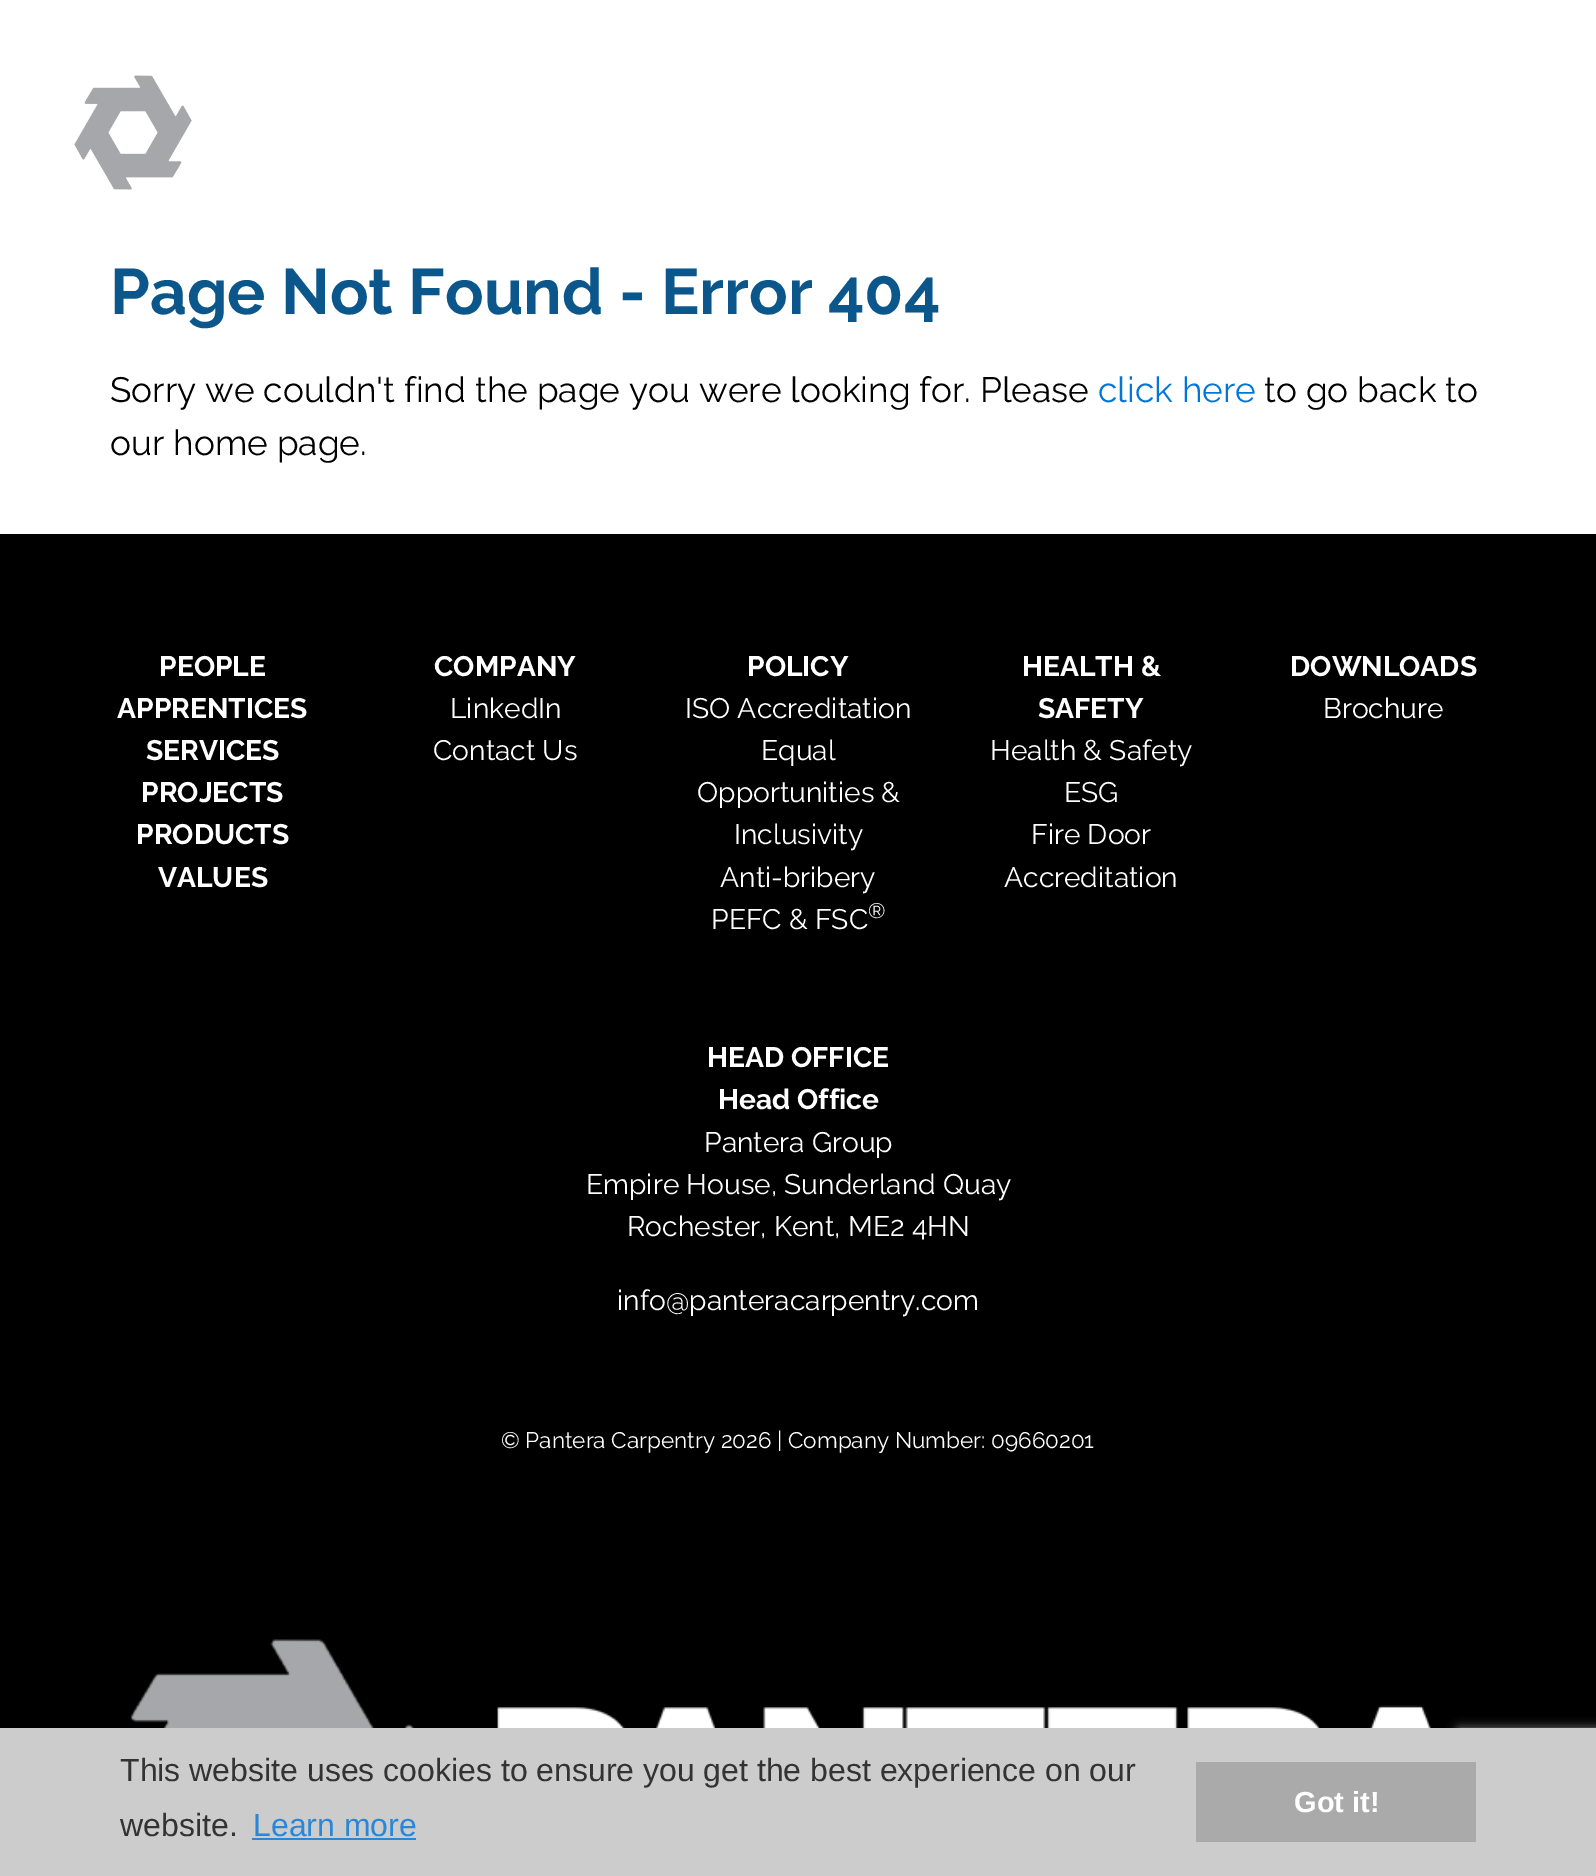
%!PS
<< /PageSize [1596 1876] /PageUsesTransparency true >> setpagedevice
/rgb { 3 { 255 div 3 1 roll } repeat setrgbcolor } def
/font { [ exch dup neg 0 0 3 -1 roll 0 0 ] selectfont } def
/alpha { dup .setfillconstantalpha .setstrokeconstantalpha } def
/roundrect { 5 dict begin { /r /h /w /y /x } { exch def } forall
  x r add y moveto x w add y 2 copy h add r arct x w add y h add x 1 index r arct
  x y h add x y r arct x y 2 copy exch w add exch r arct closepath end } def
/shadow { 12 dict begin { /a /b /q /h /w /y /x } { exch def } forall gsave /was 0 def
  9 -2 -9 { dup b mul 4 div /e exch def 1 sub .425 mul 2.718 exch exp 1 add a .99 .min exch div /now exch def
    1 1 now sub 1 was sub div sub alpha /was now def
    w h .min e 2 mul add 0 gt { x e sub y e sub w e 2 mul add h e 2 mul add
      q e add b .6 mul add w h .min 2 div e add .min 0 .max roundrect fill } if } for grestore end } def
/picture { 5 dict begin { /h /w /y /x /name } { exch def } forall
  gsave x y translate w h scale
  w h 8 [w 0 0 h 0 0] name (r) file false 3 colorimage grestore end } def
0 .pushpdf14devicefilter
0 1876 translate 1 -1 scale
4 setmiterlimit
255 255 255 rgb
0 0 1596 1876 rectfill
(img/1.rgb) 74 75 118 115 picture
0 0 0 rgb
0 534 1596 1194 rectfill
(img/2.rgb) 130 1639 1301 89 picture
128 128 128 rgb
1456 1728 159 120 4 5 1 shadow
[
  [0 1728 1596 148 204 204 204]
  [252 1838 164 2 42 134 214]
  [1196 1762 280 80 170 170 170]
] { aload pop rgb rectfill } forall
/Raleway-Bold 64 font
11 86 138 rgb
110 314 moveto (Page Not Found - Error 404) show
/Raleway-Regular 35.2 font
0 0 0 rgb
110 402 moveto (Sorry we couldn't find the page you were looking for. Please) show
2 117 216 rgb
1098 402 moveto (click here) show
0 0 0 rgb
1264 402 moveto (to go back to) show
110 455 moveto (our home page.) show
/Raleway-Bold 28.2 font
255 255 255 rgb
[
  [(PEOPLE) 159 676]
  [(APPRENTICES) 117 718]
  [(SERVICES) 146 760]
  [(PROJECTS) 141 802]
  [(PRODUCTS) 136 844]
  [(VALUES) 158 887]
  [(COMPANY) 434 676]
] { aload pop moveto show } forall
/Raleway-Regular 28.2 font
450 718 moveto (LinkedIn) show
433 760 moveto (Contact Us) show
/Raleway-Bold 28.2 font
747 676 moveto (POLICY) show
/Raleway-Regular 28.2 font
[
  [(ISO Accreditation) 685 718]
  [(Equal) 761 760]
  [(Opportunities &) 697 802]
  [(Inclusivity) 734 844]
  [(Anti-bribery) 720 887]
  [(PEFC & FSC) 711 929]
] { aload pop moveto show } forall
/Raleway-Regular 21 font
868 918 moveto (®) show
/Raleway-Bold 28.2 font
1022 676 moveto (HEALTH &) show
1038 718 moveto (SAFETY) show
/Raleway-Regular 28.2 font
[
  [(Health & Safety) 990 760]
  [(ESG) 1064 802]
  [(Fire Door) 1031 844]
  [(Accreditation) 1004 887]
] { aload pop moveto show } forall
/Raleway-Bold 28.2 font
1290 676 moveto (DOWNLOADS) show
/Raleway-Regular 28.2 font
1323 718 moveto (Brochure) show
/Raleway-Bold 28.2 font
707 1067 moveto (HEAD OFFICE) show
718 1109 moveto (Head Office) show
/Raleway-Regular 28.2 font
[
  [(Pantera Group) 704 1152]
  [(Empire House, Sunderland Quay) 586 1194]
  [(Rochester, Kent, ME2 4HN) 627 1236]
  [(info@panteracarpentry.com) 617 1310]
] { aload pop moveto show } forall
/Raleway-Regular 22.5 font
501 1448 moveto (© Pantera Carpentry 2026 | Company Number: 09660201) show
/LiberationSans-Regular 32 font
51 51 51 rgb
120 1781 moveto (This website uses cookies to ensure you get the best experience on our) show
120 1836 moveto (website.) show
42 134 214 rgb
253 1836 moveto (Learn more) show
/LiberationSans-Bold 29 font
255 255 255 rgb
1294 1812 moveto (Got it!) show
.poppdf14devicefilter showpage
